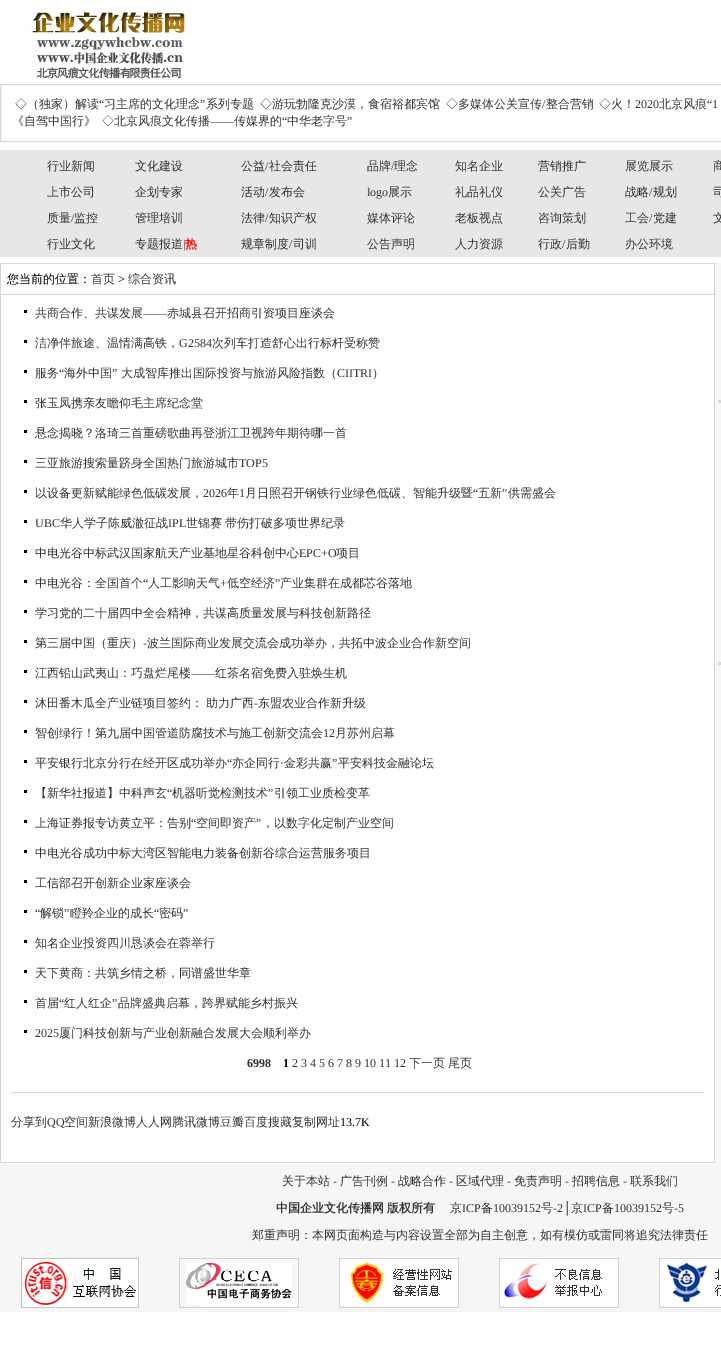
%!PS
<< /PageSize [721 1357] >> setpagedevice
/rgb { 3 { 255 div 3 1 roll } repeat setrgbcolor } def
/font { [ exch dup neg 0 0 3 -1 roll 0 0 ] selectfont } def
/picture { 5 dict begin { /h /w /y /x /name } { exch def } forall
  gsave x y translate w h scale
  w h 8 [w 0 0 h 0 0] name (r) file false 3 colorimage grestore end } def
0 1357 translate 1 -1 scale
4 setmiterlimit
255 255 255 rgb
0 0 721 1357 rectfill
(img/1.rgb) 26 10 160 70 picture
216 216 216 rgb
0.5 84.5 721 57 rectstroke
[
  [0 150 721 107 231 231 231]
  [714 263 1 900 216 216 216]
  [0 263 714 1 216 216 216]
  [0 1162 714 1 216 216 216]
  [0 263 1 900 216 216 216]
  [1 294 713 1 216 216 216]
  [24 310 3 3 1 1 1]
  [24 340 3 3 1 1 1]
  [24 370 3 3 1 1 1]
  [24 400 3 3 1 1 1]
  [24 430 3 3 1 1 1]
  [24 460 3 3 1 1 1]
  [24 490 3 3 1 1 1]
  [24 520 3 3 1 1 1]
  [24 550 3 3 1 1 1]
  [24 580 3 3 1 1 1]
  [24 610 3 3 1 1 1]
  [24 640 3 3 1 1 1]
  [24 670 3 3 1 1 1]
  [24 700 3 3 1 1 1]
  [24 730 3 3 1 1 1]
  [24 760 3 3 1 1 1]
  [24 790 3 3 1 1 1]
  [24 820 3 3 1 1 1]
  [24 850 3 3 1 1 1]
  [24 880 3 3 1 1 1]
  [24 910 3 3 1 1 1]
  [24 940 3 3 1 1 1]
  [24 970 3 3 1 1 1]
  [24 1000 3 3 1 1 1]
  [24 1030 3 3 1 1 1]
  [11 1092 693 1 216 216 216]
  [715 263 6 900 246 246 246]
  [718 400 3 3 216 216 216]
  [718 662 3 3 216 216 216]
  [0 1163 721 149 246 246 246]
] { aload pop rgb rectfill } forall
(img/2.rgb) 21 1258 118 50 picture
(img/3.rgb) 179 1258 120 50 picture
(img/4.rgb) 339 1258 120 50 picture
(img/5.rgb) 499 1258 120 50 picture
(img/6.rgb) 659 1258 62 50 picture
/WenQuanYiZenHei-Medium 12 font
51 51 51 rgb
15 108 moveto (◇（独家）解读) show
/LiberationSerif-Regular 12 font
99 108 moveto (“) show
/WenQuanYiZenHei-Medium 12 font
104 108 moveto (习主席的文化理念) show
/LiberationSerif-Regular 12 font
200 108 moveto (”) show
/WenQuanYiZenHei-Medium 12 font
[
  [(系列专题) 206 108]
  [(◇游玩勃隆克沙漠，食宿裕都宾馆) 260 108]
  [(◇多媒体公关宣传 整合营销) 446 108]
  [(◇火！) 599 108]
  [(北京风痕) 659 108]
] { aload pop moveto show } forall
/LiberationSerif-Regular 12 font
[
  [(/) 542 108]
  [(2020) 635 108]
  [(“1) 707 108]
] { aload pop moveto show } forall
/WenQuanYiZenHei-Medium 12 font
12 125 moveto (《自驾中国行》) show
102 125 moveto (◇北京风痕文化传播) show
/LiberationSerif-Regular 12 font
282 125 moveto (“) show
/WenQuanYiZenHei-Medium 12 font
287 125 moveto (中华老字号) show
/LiberationSerif-Regular 12 font
347 125 moveto (”) show
210 125 moveto (——) show
/WenQuanYiZenHei-Medium 12 font
[
  [(传媒界的) 234 125]
  [(行业新闻) 47 170]
  [(文化建设) 135 170]
  [(公益 社会责任) 241 170]
] { aload pop moveto show } forall
/LiberationSerif-Regular 12 font
265 170 moveto (/) show
/WenQuanYiZenHei-Medium 12 font
367 170 moveto (品牌) show
/LiberationSerif-Regular 12 font
391 170 moveto (/) show
/WenQuanYiZenHei-Medium 12 font
[
  [(理念) 394 170]
  [(知名企业) 455 170]
  [(营销推广) 538 170]
  [(展览展示) 625 170]
  [(商) 713 170]
  [(上市公司) 47 196]
  [(企划专家) 135 196]
  [(活动 发布会) 241 196]
] { aload pop moveto show } forall
/LiberationSerif-Regular 12 font
265 196 moveto (/) show
367 196 moveto (logo) show
/WenQuanYiZenHei-Medium 12 font
[
  [(展示) 388 196]
  [(礼品礼仪) 455 196]
  [(公关广告) 538 196]
  [(战略 规划) 625 196]
] { aload pop moveto show } forall
/LiberationSerif-Regular 12 font
649 196 moveto (/) show
/WenQuanYiZenHei-Medium 12 font
713 196 moveto (司) show
47 222 moveto (质量) show
/LiberationSerif-Regular 12 font
71 222 moveto (/) show
/WenQuanYiZenHei-Medium 12 font
[
  [(监控) 74 222]
  [(管理培训) 135 222]
  [(法律 知识产权) 241 222]
] { aload pop moveto show } forall
/LiberationSerif-Regular 12 font
265 222 moveto (/) show
/WenQuanYiZenHei-Medium 12 font
[
  [(媒体评论) 367 222]
  [(老板视点) 455 222]
  [(咨询策划) 538 222]
  [(工会 党建) 625 222]
] { aload pop moveto show } forall
/LiberationSerif-Regular 12 font
649 222 moveto (/) show
/WenQuanYiZenHei-Medium 12 font
[
  [(文) 713 222]
  [(行业文化) 47 248]
  [(专题报道) 135 248]
] { aload pop moveto show } forall
/LiberationSerif-Regular 12 font
183 248 moveto (|) show
/WenQuanYiZenHei-Bold 12 font
255 0 0 rgb
185 248 moveto (热) show
/WenQuanYiZenHei-Medium 12 font
51 51 51 rgb
241 248 moveto (规章制度 司训) show
/LiberationSerif-Regular 12 font
289 248 moveto (/) show
/WenQuanYiZenHei-Medium 12 font
[
  [(公告声明) 367 248]
  [(人力资源) 455 248]
  [(行政 后勤) 538 248]
] { aload pop moveto show } forall
/LiberationSerif-Regular 12 font
562 248 moveto (/) show
/WenQuanYiZenHei-Medium 12 font
625 248 moveto (办公环境) show
0 0 0 rgb
7 283 moveto (您当前的位置：) show
51 51 51 rgb
91 283 moveto (首页) show
/LiberationSerif-Regular 12 font
0 0 0 rgb
118 283 moveto (>) show
/WenQuanYiZenHei-Medium 12 font
51 51 51 rgb
128 283 moveto (综合资讯) show
35 317 moveto (共商合作、共谋发展) show
/LiberationSerif-Regular 12 font
143 317 moveto (——) show
/WenQuanYiZenHei-Medium 12 font
167 317 moveto (赤城县召开招商引资项目座谈会) show
35 347 moveto (洁净伴旅途、温情满高铁，) show
/LiberationSerif-Regular 12 font
179 347 moveto (G2584) show
/WenQuanYiZenHei-Medium 12 font
212 347 moveto (次列车打造舒心出行标杆受称赞) show
35 377 moveto (服务) show
/LiberationSerif-Regular 12 font
59 377 moveto (“) show
/WenQuanYiZenHei-Medium 12 font
64 377 moveto (海外中国) show
/LiberationSerif-Regular 12 font
112 377 moveto (”) show
/WenQuanYiZenHei-Medium 12 font
121 377 moveto (大成智库推出国际投资与旅游风险指数（) show
/LiberationSerif-Regular 12 font
337 377 moveto (CIITRI) show
/WenQuanYiZenHei-Medium 12 font
[
  [(）) 372 377]
  [(张玉凤携亲友瞻仰毛主席纪念堂) 35 407]
  [(悬念揭晓？洛琦三首重磅歌曲再登浙江卫视跨年期待哪一首) 35 437]
  [(三亚旅游搜索量跻身全国热门旅游城市) 35 467]
] { aload pop moveto show } forall
/LiberationSerif-Regular 12 font
239 467 moveto (TOP5) show
/WenQuanYiZenHei-Medium 12 font
35 497 moveto (以设备更新赋能绿色低碳发展，) show
/LiberationSerif-Regular 12 font
203 497 moveto (2026) show
/WenQuanYiZenHei-Medium 12 font
227 497 moveto (年) show
/LiberationSerif-Regular 12 font
239 497 moveto (1) show
/WenQuanYiZenHei-Medium 12 font
245 497 moveto (月日照召开钢铁行业绿色低碳、智能升级暨) show
/LiberationSerif-Regular 12 font
473 497 moveto (“) show
/WenQuanYiZenHei-Medium 12 font
478 497 moveto (五新) show
/LiberationSerif-Regular 12 font
502 497 moveto (”) show
/WenQuanYiZenHei-Medium 12 font
508 497 moveto (供需盛会) show
/LiberationSerif-Regular 12 font
35 527 moveto (UBC) show
/WenQuanYiZenHei-Medium 12 font
60 527 moveto (华人学子陈威澈征战) show
/LiberationSerif-Regular 12 font
168 527 moveto (IPL) show
/WenQuanYiZenHei-Medium 12 font
186 527 moveto -1 0 32 (世锦赛 带伤打破多项世界纪录) widthshow
35 557 moveto (中电光谷中标武汉国家航天产业基地星谷科创中心) show
/LiberationSerif-Regular 12 font
299 557 moveto (EPC+O) show
/WenQuanYiZenHei-Medium 12 font
336 557 moveto (项目) show
35 587 moveto (中电光谷：全国首个) show
/LiberationSerif-Regular 12 font
143 587 moveto (“) show
/WenQuanYiZenHei-Medium 12 font
148 587 moveto (人工影响天气) show
/LiberationSerif-Regular 12 font
220 587 moveto (+) show
/WenQuanYiZenHei-Medium 12 font
227 587 moveto (低空经济) show
/LiberationSerif-Regular 12 font
275 587 moveto (”) show
/WenQuanYiZenHei-Medium 12 font
[
  [(产业集群在成都芯谷落地) 280 587]
  [(学习党的二十届四中全会精神，共谋高质量发展与科技创新路径) 35 617]
  [(第三届中国（重庆）) 35 647]
] { aload pop moveto show } forall
/LiberationSerif-Regular 12 font
143 647 moveto (-) show
/WenQuanYiZenHei-Medium 12 font
147 647 moveto (波兰国际商业发展交流会成功举办，共拓中波企业合作新空间) show
35 677 moveto (江西铅山武夷山：巧盘烂尾楼) show
/LiberationSerif-Regular 12 font
191 677 moveto (——) show
/WenQuanYiZenHei-Medium 12 font
215 677 moveto (红茶名宿免费入驻焕生机) show
35 707 moveto -1 0 32 (沐田番木瓜全产业链项目签约： 助力广西) widthshow
/LiberationSerif-Regular 12 font
254 707 moveto (-) show
/WenQuanYiZenHei-Medium 12 font
258 707 moveto (东盟农业合作新升级) show
35 737 moveto (智创绿行！第九届中国管道防腐技术与施工创新交流会) show
/LiberationSerif-Regular 12 font
323 737 moveto (12) show
/WenQuanYiZenHei-Medium 12 font
335 737 moveto (月苏州启幕) show
35 767 moveto (平安银行北京分行在经开区成功举办) show
/LiberationSerif-Regular 12 font
227 767 moveto (“) show
/WenQuanYiZenHei-Medium 12 font
232 767 moveto (亦企同行) show
/LiberationSerif-Regular 12 font
280 767 moveto (·) show
/WenQuanYiZenHei-Medium 12 font
284 767 moveto (金彩共赢) show
/LiberationSerif-Regular 12 font
332 767 moveto (”) show
/WenQuanYiZenHei-Medium 12 font
338 767 moveto (平安科技金融论坛) show
35 797 moveto (【新华社报道】中科声玄) show
/LiberationSerif-Regular 12 font
167 797 moveto (“) show
/WenQuanYiZenHei-Medium 12 font
172 797 moveto (机器听觉检测技术) show
/LiberationSerif-Regular 12 font
268 797 moveto (”) show
/WenQuanYiZenHei-Medium 12 font
274 797 moveto (引领工业质检变革) show
35 827 moveto (上海证券报专访黄立平：告别) show
/LiberationSerif-Regular 12 font
191 827 moveto (“) show
/WenQuanYiZenHei-Medium 12 font
196 827 moveto (空间即资产) show
/LiberationSerif-Regular 12 font
256 827 moveto (”) show
/WenQuanYiZenHei-Medium 12 font
[
  [(，以数字化定制产业空间) 262 827]
  [(中电光谷成功中标大湾区智能电力装备创新谷综合运营服务项目) 35 857]
  [(工信部召开创新企业家座谈会) 35 887]
] { aload pop moveto show } forall
/LiberationSerif-Regular 12 font
35 917 moveto (“) show
/WenQuanYiZenHei-Medium 12 font
40 917 moveto (解锁) show
/LiberationSerif-Regular 12 font
64 917 moveto (”) show
/WenQuanYiZenHei-Medium 12 font
70 917 moveto (瞪羚企业的成长) show
/LiberationSerif-Regular 12 font
154 917 moveto (“) show
/WenQuanYiZenHei-Medium 12 font
159 917 moveto (密码) show
/LiberationSerif-Regular 12 font
183 917 moveto (”) show
/WenQuanYiZenHei-Medium 12 font
[
  [(知名企业投资四川恳谈会在蓉举行) 35 947]
  [(天下黄商：共筑乡情之桥，同谱盛世华章) 35 977]
  [(首届) 35 1007]
] { aload pop moveto show } forall
/LiberationSerif-Regular 12 font
59 1007 moveto (“) show
/WenQuanYiZenHei-Medium 12 font
64 1007 moveto (红人红企) show
/LiberationSerif-Regular 12 font
112 1007 moveto (”) show
/WenQuanYiZenHei-Medium 12 font
118 1007 moveto (品牌盛典启幕，跨界赋能乡村振兴) show
/LiberationSerif-Regular 12 font
35 1037 moveto (2025) show
/WenQuanYiZenHei-Medium 12 font
59 1037 moveto (厦门科技创新与产业创新融合发展大会顺利举办) show
/LiberationSerif-Bold 12 font
247 1067 moveto (6998) show
0 0 0 rgb
283 1067 moveto (1) show
/LiberationSerif-Regular 12 font
51 51 51 rgb
292 1067 moveto (2 3 4 5 6 7 8 9 10 11 12) show
/WenQuanYiZenHei-Medium 12 font
[
  [(下一页) 409 1067]
  [(尾页) 448 1067]
  [(分享到) 11 1126]
] { aload pop moveto show } forall
/LiberationSerif-Regular 12 font
47 1126 moveto (QQ) show
/WenQuanYiZenHei-Medium 12 font
64 1126 moveto (空间新浪微博人人网腾讯微博豆瓣百度搜藏复制网址) show
/LiberationSerif-Regular 12 font
0 0 0 rgb
340 1126 moveto (13.7K) show
/WenQuanYiZenHei-Medium 12 font
51 51 51 rgb
282 1185 moveto (关于本站) show
/LiberationSerif-Regular 12 font
333 1185 moveto (-) show
/WenQuanYiZenHei-Medium 12 font
340 1185 moveto (广告刊例) show
/LiberationSerif-Regular 12 font
391 1185 moveto (-) show
/WenQuanYiZenHei-Medium 12 font
398 1185 moveto (战略合作) show
/LiberationSerif-Regular 12 font
449 1185 moveto (-) show
/WenQuanYiZenHei-Medium 12 font
456 1185 moveto (区域代理) show
/LiberationSerif-Regular 12 font
507 1185 moveto (-) show
/WenQuanYiZenHei-Medium 12 font
514 1185 moveto (免责声明) show
/LiberationSerif-Regular 12 font
565 1185 moveto (-) show
/WenQuanYiZenHei-Medium 12 font
572 1185 moveto (招聘信息) show
/LiberationSerif-Regular 12 font
623 1185 moveto (-) show
/WenQuanYiZenHei-Medium 12 font
630 1185 moveto (联系我们) show
/WenQuanYiZenHei-Bold 12 font
276 1212 moveto (中国企业文化传播网) show
387 1212 moveto (版权所有) show
/WenQuanYiZenHei-Medium 12 font
450 1212 moveto (京) show
/LiberationSerif-Regular 12 font
462 1212 moveto (ICP) show
/WenQuanYiZenHei-Medium 12 font
481 1212 moveto (备) show
/LiberationSerif-Regular 12 font
493 1212 moveto (10039152) show
/WenQuanYiZenHei-Medium 12 font
541 1212 moveto (号) show
/LiberationSerif-Regular 12 font
553 1212 moveto (-2│) show
/WenQuanYiZenHei-Medium 12 font
571 1212 moveto (京) show
/LiberationSerif-Regular 12 font
583 1212 moveto (ICP) show
/WenQuanYiZenHei-Medium 12 font
602 1212 moveto (备) show
/LiberationSerif-Regular 12 font
614 1212 moveto (10039152) show
/WenQuanYiZenHei-Medium 12 font
662 1212 moveto (号) show
/LiberationSerif-Regular 12 font
674 1212 moveto (-5) show
/WenQuanYiZenHei-Medium 12 font
252 1239 moveto (郑重声明：本网页面构造与内容设置全部为自主创意，如有模仿或雷同将追究法律责任) show
showpage
